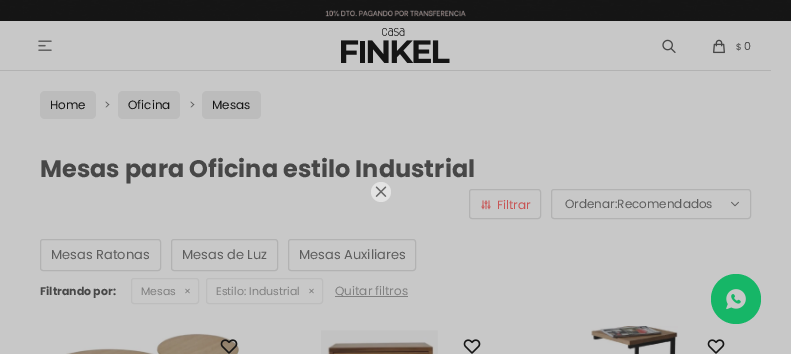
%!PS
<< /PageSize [791 354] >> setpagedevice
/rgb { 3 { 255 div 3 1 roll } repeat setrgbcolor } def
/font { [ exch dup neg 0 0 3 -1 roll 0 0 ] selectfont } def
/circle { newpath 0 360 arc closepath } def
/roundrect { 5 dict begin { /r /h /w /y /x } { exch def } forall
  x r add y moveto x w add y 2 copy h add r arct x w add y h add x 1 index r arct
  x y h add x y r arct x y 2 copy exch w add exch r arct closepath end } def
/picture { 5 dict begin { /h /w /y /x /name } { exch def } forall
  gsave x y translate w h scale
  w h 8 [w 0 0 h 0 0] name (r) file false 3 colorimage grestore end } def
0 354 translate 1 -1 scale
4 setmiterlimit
200 200 200 rgb
0 0 791 354 rectfill
(img/1.rgb) 0 0 791 21 picture
(img/2.rgb) 38 40 14 11 picture
(img/3.rgb) 341 28 109 35 picture
(img/4.rgb) 662 39 14 14 picture
(img/5.rgb) 713 39 12 15 picture
178 178 178 rgb
0 70 771 1 rectfill
188 188 188 rgb
40 91 56 28 5 roundrect fill
118 91 62 28 5 roundrect fill
202 91 59 28 5 roundrect fill
178 178 178 rgb
469.5 189.5 71 29 2.5 roundrect stroke
(img/6.rgb) 481 200 10 10 picture
(img/7.rgb) 731 201 8 6 picture
551.5 189.5 199 29 2.5 roundrect stroke
40.5 239.5 120 31 2.5 roundrect stroke
171.5 239.5 106 31 2.5 roundrect stroke
288.5 239.5 127 31 2.5 roundrect stroke
189 189 189 rgb
131.5 278.5 67 25 2.5 roundrect stroke
206.5 278.5 116 25 2.5 roundrect stroke
128 128 128 rgb
335 296 73 1 rectfill
(img/8.rgb) 66 333 174 21 picture
(img/9.rgb) 220 339 18 15 picture
(img/10.rgb) 321 330 117 24 picture
(img/11.rgb) 463 339 18 15 picture
(img/12.rgb) 591 326 87 28 picture
(img/11.rgb) 707 339 18 15 picture
22 182 103 rgb
736 299 25 circle fill
(img/14.rgb) 726 289 20 21 picture
/Poppins-Regular 9 font
71 71 71 rgb
736 50 moveto ($) show
/Poppins-Regular 11 font
744 50 moveto (0) show
/Poppins-Regular 12 font
21 21 21 rgb
50 109 moveto (Home) show
93 93 93 rgb
104 109 moveto (>) show
21 21 21 rgb
128 109 moveto (Oficina) show
93 93 93 rgb
189 109 moveto (>) show
21 21 21 rgb
212 109 moveto (Mesas) show
/Poppins-Bold 24 font
71 71 71 rgb
40 177 moveto (Mesas para Oficina estilo Industrial) show
/Poppins-Regular 12 font
200 84 84 rgb
497 209 moveto (Filtrar) show
93 93 93 rgb
565 208 moveto (Ordenar:Recomendados) show
/Poppins-Regular 13 font
[
  [(Mesas Ratonas) 51 259]
  [(Mesas de Luz) 182 259]
  [(Mesas Auxiliares) 299 259]
] { aload pop moveto show } forall
/Poppins-Bold 11 font
71 71 71 rgb
40 295 moveto (Filtrando por:) show
/Poppins-Regular 11 font
128 128 128 rgb
[
  [(Mesas) 141 295]
  [(×) 184 295]
  [(Estilo: Industrial) 216 295]
  [(×) 308 295]
] { aload pop moveto show } forall
/Poppins-Regular 12 font
335 295 moveto (Quitar filtros) show
227 227 227 rgb
381 192 10 circle fill
(img/13.rgb) 375 186 12 11 picture
showpage
